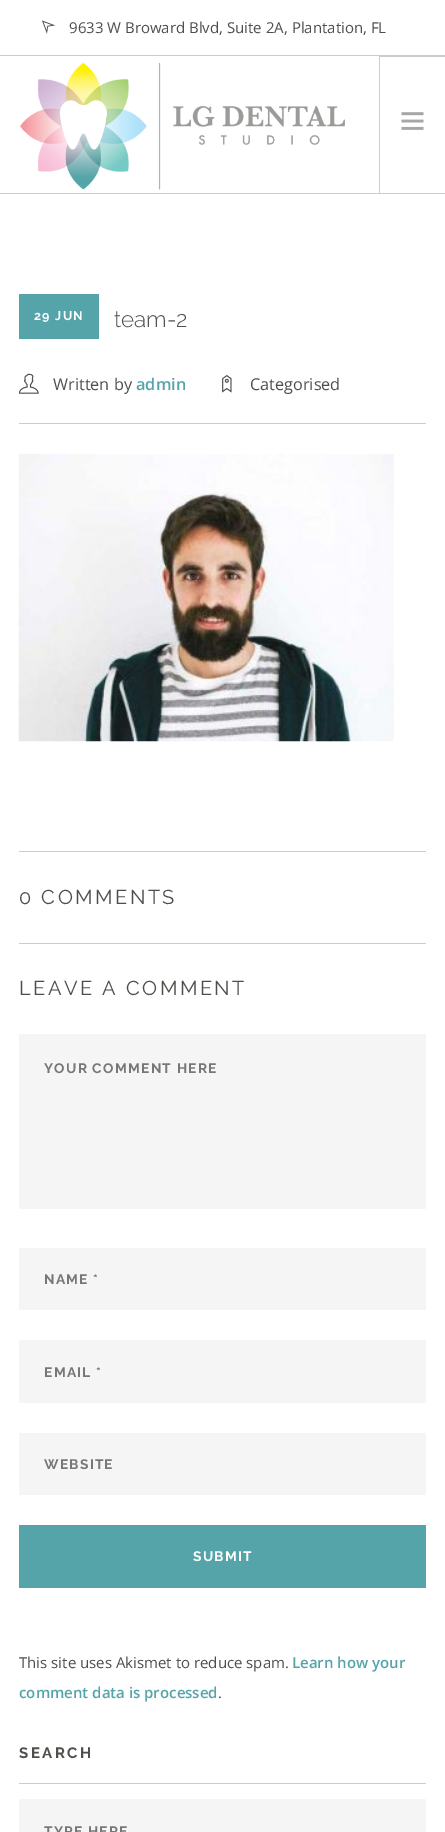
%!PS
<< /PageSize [445 1832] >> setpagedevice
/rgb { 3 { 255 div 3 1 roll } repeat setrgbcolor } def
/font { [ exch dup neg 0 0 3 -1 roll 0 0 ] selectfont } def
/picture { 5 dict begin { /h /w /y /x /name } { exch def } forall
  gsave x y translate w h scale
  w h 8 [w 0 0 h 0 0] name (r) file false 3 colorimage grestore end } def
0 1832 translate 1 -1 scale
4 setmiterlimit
255 255 255 rgb
0 0 445 1832 rectfill
204 204 204 rgb
0 55 445 1 rectfill
(img/1.rgb) 42 20 14 14 picture
0 193 445 1 rectfill
(img/2.rgb) 20 62 325 128 picture
379 56 66 1 rectfill
379 56 1 137 rectfill
(img/3.rgb) 401 112 23 18 picture
84 164 169 rgb
19 294 80 45 rectfill
(img/4.rgb) 19 373 20 21 picture
(img/5.rgb) 222 375 10 18 picture
204 204 204 rgb
19 423 407 1 rectfill
(img/6.rgb) 18 454 376 288 picture
[
  [19 851 407 1 204 204 204]
  [19 943 407 1 204 204 204]
  [19 1034 407 175 245 245 245]
  [19 1248 407 62 245 245 245]
  [19 1340 407 63 245 245 245]
  [19 1433 407 62 245 245 245]
  [19 1525 407 63 84 164 169]
  [19 1783 407 1 204 204 204]
  [19 1799 407 33 245 245 245]
] { aload pop rgb rectfill } forall
/OpenSans-Regular 15 font
78 79 75 rgb
69 33 moveto (9633 W Broward Blvd, Suite 2A, Plantation, FL) show
/Raleway-Bold 12.5 font
255 255 255 rgb
34 320 moveto 1.25 0 (29 JUN) ashow
/Raleway-Light 22.5 font
78 79 75 rgb
114 327 moveto (team-2) show
/OpenSans-Regular 16.25 font
53 390 moveto (Written by) show
/OpenSans-SemiBold 16.25 font
84 164 169 rgb
136 390 moveto (admin) show
/OpenSans-Regular 16.25 font
78 79 75 rgb
250 390 moveto (Categorised) show
/Raleway-Regular 20 font
19 904 moveto 2.5 0 (0 COMMENTS) ashow
19 995 moveto 2.5 0 (LEAVE A COMMENT) ashow
/Raleway-Bold 13.75 font
119 119 119 rgb
44 1073 moveto 1.25 0 (YOUR COMMENT HERE) ashow
44 1284 moveto 1.25 0 (NAME *) ashow
44 1377 moveto 1.25 0 (EMAIL *) ashow
44 1469 moveto 1.25 0 (WEBSITE) ashow
255 255 255 rgb
193 1561 moveto 1.25 0 (SUBMIT) ashow
/OpenSans-Regular 15 font
78 79 75 rgb
19 1668 moveto (This site uses Akismet to reduce spam.) show
/OpenSans-SemiBold 15 font
84 164 169 rgb
292 1668 moveto (Learn how your) show
19 1698 moveto (comment data is processed) show
/OpenSans-Regular 15 font
78 79 75 rgb
218 1698 moveto (.) show
/Raleway-Bold 15 font
19 1758 moveto 2.5 0 (SEARCH) ashow
/Raleway-Bold 13.75 font
119 119 119 rgb
44 1836 moveto 1.25 0 (TYPE HERE) ashow
showpage
